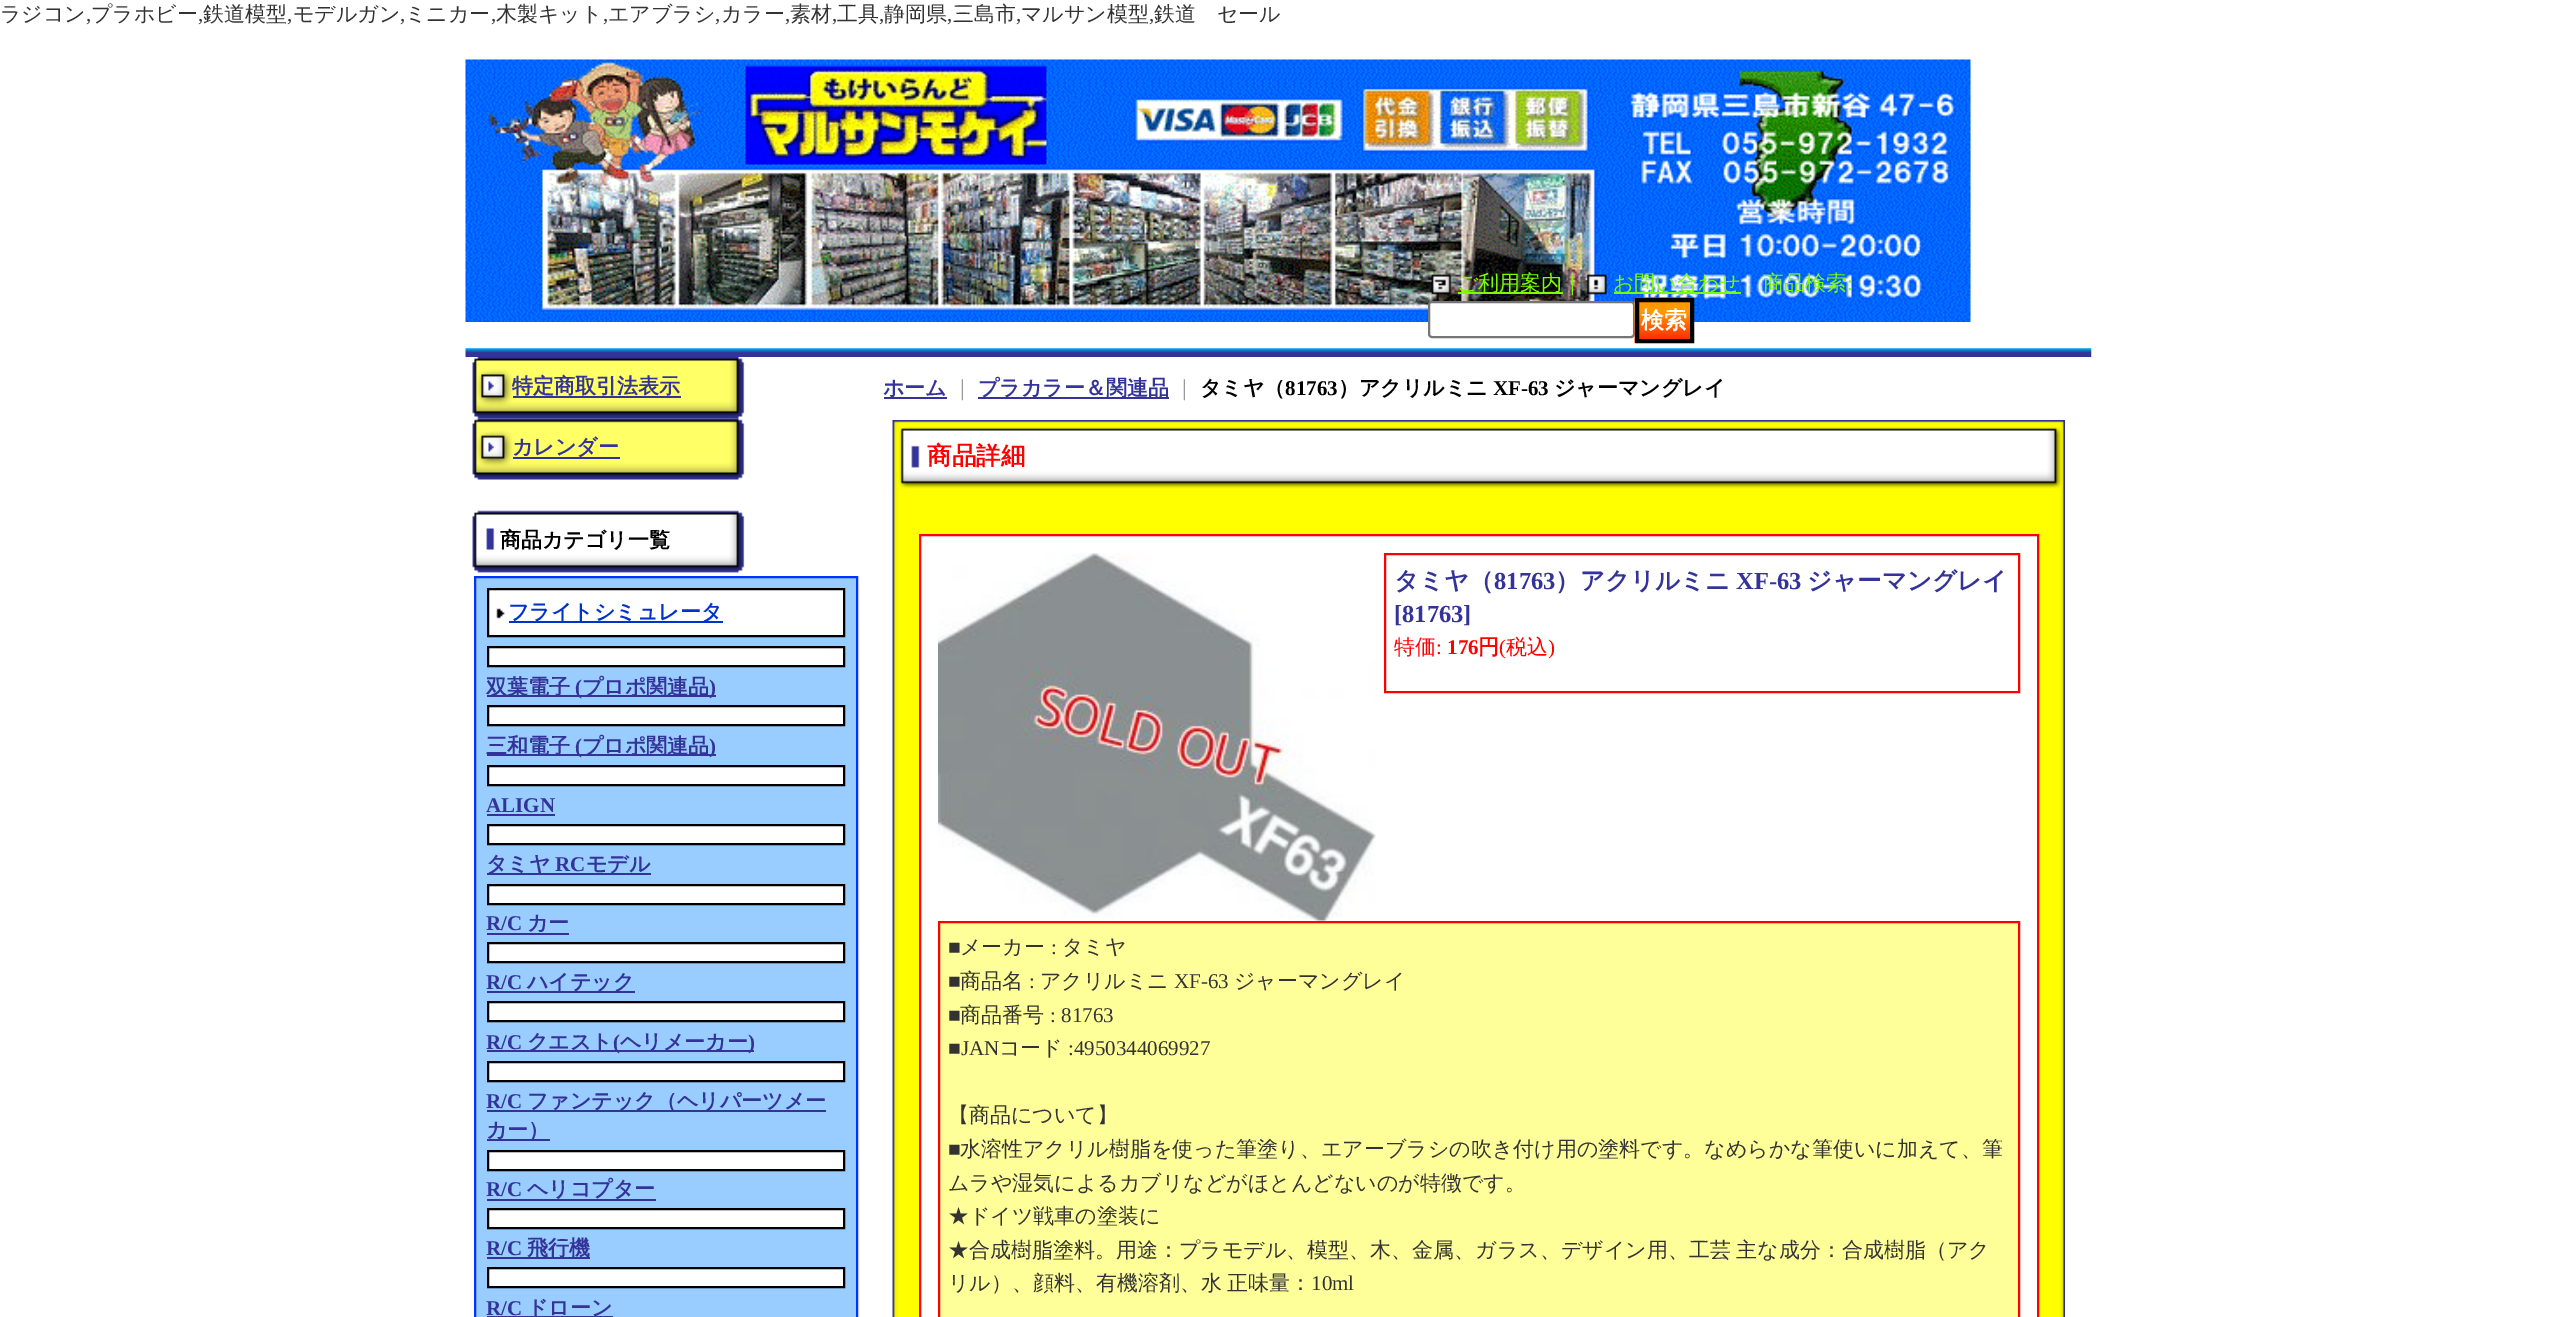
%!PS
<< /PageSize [2554 1317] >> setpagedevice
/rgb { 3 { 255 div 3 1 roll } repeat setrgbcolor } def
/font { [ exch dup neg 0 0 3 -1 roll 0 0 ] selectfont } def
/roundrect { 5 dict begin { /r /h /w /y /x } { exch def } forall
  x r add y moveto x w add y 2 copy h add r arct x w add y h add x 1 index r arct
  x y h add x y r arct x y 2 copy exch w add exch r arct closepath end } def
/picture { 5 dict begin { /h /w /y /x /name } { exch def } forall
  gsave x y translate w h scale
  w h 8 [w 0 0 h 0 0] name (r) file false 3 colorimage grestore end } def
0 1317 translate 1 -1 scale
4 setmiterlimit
255 255 255 rgb
0 0 2554 1317 rectfill
(img/1.rgb) 465 59 1506 263 picture
(img/2.rgb) 1431 274 21 21 picture
124 252 0 rgb
1458 292 105 2 rectfill
(img/3.rgb) 1586 274 21 21 picture
1614 292 127 2 rectfill
255 255 255 rgb
1429 302 205 35 3 roundrect gsave fill grestore
118 118 118 rgb
2 setlinewidth
stroke
(img/4.rgb) 1634 297 60 46 picture
0 0 0 rgb
4 setlinewidth
1637 300 55 41 rectstroke
(img/5.rgb) 465 348 1627 9 picture
(img/6.rgb) 472 357 273 62 picture
51 51 153 rgb
513 396 168 2 rectfill
(img/7.rgb) 472 418 273 62 picture
513 457 107 2 rectfill
(img/8.rgb) 472 510 273 63 picture
153 204 255 rgb
475 577 moveto 857 577 lineto 857 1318 lineto 475 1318 lineto closepath gsave fill grestore
0 51 255 rgb
2 setlinewidth
stroke
255 255 255 rgb
489 590 354 45 rectfill
(img/9.rgb) 496 608 9 11 picture
0 0 0 rgb
488 589 356 47 rectstroke
0 51 204 rgb
509 621 214 2 rectfill
255 255 255 rgb
488 647 moveto 844 647 lineto 844 666 lineto 488 666 lineto closepath gsave fill grestore
0 0 0 rgb
stroke
51 51 153 rgb
487 695 229 2 rectfill
255 255 255 rgb
488 706 moveto 844 706 lineto 844 725 lineto 488 725 lineto closepath gsave fill grestore
0 0 0 rgb
stroke
51 51 153 rgb
487 754 229 2 rectfill
255 255 255 rgb
488 766 moveto 844 766 lineto 844 785 lineto 488 785 lineto closepath gsave fill grestore
0 0 0 rgb
stroke
51 51 153 rgb
487 814 68 2 rectfill
255 255 255 rgb
488 825 moveto 844 825 lineto 844 844 lineto 488 844 lineto closepath gsave fill grestore
0 0 0 rgb
stroke
51 51 153 rgb
487 873 164 2 rectfill
255 255 255 rgb
488 885 moveto 844 885 lineto 844 904 lineto 488 904 lineto closepath gsave fill grestore
0 0 0 rgb
stroke
51 51 153 rgb
487 933 82 2 rectfill
255 255 255 rgb
488 943 moveto 844 943 lineto 844 962 lineto 488 962 lineto closepath gsave fill grestore
0 0 0 rgb
stroke
51 51 153 rgb
487 991 148 2 rectfill
255 255 255 rgb
488 1002 moveto 844 1002 lineto 844 1021 lineto 488 1021 lineto closepath gsave fill grestore
0 0 0 rgb
stroke
51 51 153 rgb
487 1050 267 2 rectfill
255 255 255 rgb
488 1062 moveto 844 1062 lineto 844 1081 lineto 488 1081 lineto closepath gsave fill grestore
0 0 0 rgb
stroke
51 51 153 rgb
487 1110 339 2 rectfill
487 1139 63 2 rectfill
255 255 255 rgb
488 1151 moveto 844 1151 lineto 844 1170 lineto 488 1170 lineto closepath gsave fill grestore
0 0 0 rgb
stroke
51 51 153 rgb
487 1199 169 2 rectfill
255 255 255 rgb
488 1209 moveto 844 1209 lineto 844 1228 lineto 488 1228 lineto closepath gsave fill grestore
0 0 0 rgb
stroke
51 51 153 rgb
487 1257 103 2 rectfill
255 255 255 rgb
488 1268 moveto 844 1268 lineto 844 1287 lineto 488 1287 lineto closepath gsave fill grestore
0 0 0 rgb
stroke
[
  [487 1316 126 1 51 51 153]
  [884 397 63 2 51 51 153]
  [978 397 191 2 51 51 153]
] { aload pop rgb rectfill } forall
(img/10.rgb) 892 420 1173 70 picture
(img/11.rgb) 892 490 1173 827 picture
255 255 255 rgb
920 535 moveto 2038 535 lineto 2038 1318 lineto 920 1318 lineto closepath gsave fill grestore
255 0 0 rgb
stroke
(img/12.rgb) 938 553 438 368 picture
1385 554 634 138 rectstroke
255 255 153 rgb
939 922 moveto 2019 922 lineto 2019 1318 lineto 939 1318 lineto closepath gsave fill grestore
255 0 0 rgb
stroke
/WenQuanYiZenHei-Medium 21 font
51 51 51 rgb
0 21 moveto (ラジコン) show
/LiberationSerif-Regular 21 font
86 21 moveto (,) show
/WenQuanYiZenHei-Medium 21 font
91 21 moveto (プラホビー) show
/LiberationSerif-Regular 21 font
198 21 moveto (,) show
/WenQuanYiZenHei-Medium 21 font
203 21 moveto (鉄道模型) show
/LiberationSerif-Regular 21 font
287 21 moveto (,) show
/WenQuanYiZenHei-Medium 21 font
293 21 moveto (モデルガン) show
/LiberationSerif-Regular 21 font
400 21 moveto (,) show
/WenQuanYiZenHei-Medium 21 font
405 21 moveto (ミニカー) show
/LiberationSerif-Regular 21 font
491 21 moveto (,) show
/WenQuanYiZenHei-Medium 21 font
496 21 moveto (木製キット) show
/LiberationSerif-Regular 21 font
603 21 moveto (,) show
/WenQuanYiZenHei-Medium 21 font
608 21 moveto (エアブラシ) show
/LiberationSerif-Regular 21 font
715 21 moveto (,) show
/WenQuanYiZenHei-Medium 21 font
721 21 moveto (カラー) show
/LiberationSerif-Regular 21 font
785 21 moveto (,) show
/WenQuanYiZenHei-Medium 21 font
790 21 moveto (素材) show
/LiberationSerif-Regular 21 font
832 21 moveto (,) show
/WenQuanYiZenHei-Medium 21 font
837 21 moveto (工具) show
/LiberationSerif-Regular 21 font
879 21 moveto (,) show
/WenQuanYiZenHei-Medium 21 font
884 21 moveto (静岡県) show
/LiberationSerif-Regular 21 font
947 21 moveto (,) show
/WenQuanYiZenHei-Medium 21 font
953 21 moveto (三島市) show
/LiberationSerif-Regular 21 font
1016 21 moveto (,) show
/WenQuanYiZenHei-Medium 21 font
1021 21 moveto (マルサン模型) show
/LiberationSerif-Regular 21 font
1149 21 moveto (,) show
/WenQuanYiZenHei-Medium 21 font
1154 21 moveto (鉄道　セール) show
124 252 0 rgb
[
  [(ご利用案内｜) 1457 290]
  [(お問い合わせ) 1613 290]
  [(商品検索) 1763 290]
] { aload pop moveto show } forall
/LiberationSerif-Regular 21 font
1847 290 moveto (:) show
/WenQuanYiZenHei-Bold 23 font
255 255 255 rgb
1641 328 moveto (検索) show
/WenQuanYiZenHei-Bold 21 font
51 51 153 rgb
512 393 moveto (特定商取引法表示) show
512 454 moveto (カレンダー) show
0 0 0 rgb
500 547 moveto (商品カテゴリ一覧) show
0 51 204 rgb
508 619 moveto (フライトシミュレータ) show
51 51 153 rgb
486 694 moveto (双葉電子) show
/LiberationSerif-Bold 21 font
575 694 moveto (\() show
/WenQuanYiZenHei-Bold 21 font
582 694 moveto (プロポ関連品) show
/LiberationSerif-Bold 21 font
709 694 moveto (\)) show
/WenQuanYiZenHei-Bold 21 font
486 753 moveto (三和電子) show
/LiberationSerif-Bold 21 font
575 753 moveto (\() show
/WenQuanYiZenHei-Bold 21 font
582 753 moveto (プロポ関連品) show
/LiberationSerif-Bold 21 font
709 753 moveto (\)) show
486 812 moveto (ALIGN) show
/WenQuanYiZenHei-Bold 21 font
486 871 moveto (タミヤ) show
/LiberationSerif-Bold 21 font
555 871 moveto (RC) show
/WenQuanYiZenHei-Bold 21 font
586 871 moveto (モデル) show
/LiberationSerif-Bold 21 font
486 930 moveto (R/C) show
/WenQuanYiZenHei-Bold 21 font
527 930 moveto (カー) show
/LiberationSerif-Bold 21 font
486 989 moveto (R/C) show
/WenQuanYiZenHei-Bold 21 font
527 989 moveto (ハイテック) show
/LiberationSerif-Bold 21 font
486 1049 moveto (R/C) show
/WenQuanYiZenHei-Bold 21 font
527 1049 moveto (クエスト) show
/LiberationSerif-Bold 21 font
613 1049 moveto (\() show
/WenQuanYiZenHei-Bold 21 font
620 1049 moveto (ヘリメーカー) show
/LiberationSerif-Bold 21 font
748 1049 moveto (\)) show
486 1108 moveto (R/C) show
/WenQuanYiZenHei-Bold 21 font
527 1108 moveto (ファンテック（ヘリパーツメー) show
486 1137 moveto (カー）) show
/LiberationSerif-Bold 21 font
486 1196 moveto (R/C) show
/WenQuanYiZenHei-Bold 21 font
527 1196 moveto (ヘリコプター) show
/LiberationSerif-Bold 21 font
486 1255 moveto (R/C) show
/WenQuanYiZenHei-Bold 21 font
527 1255 moveto (飛行機) show
/LiberationSerif-Bold 21 font
486 1315 moveto (R/C) show
/WenQuanYiZenHei-Bold 21 font
527 1315 moveto (ドローン) show
883 395 moveto (ホーム) show
/WenQuanYiZenHei-Medium 21 font
153 153 153 rgb
952 395 moveto (｜) show
/WenQuanYiZenHei-Bold 21 font
51 51 153 rgb
978 395 moveto (プラカラー＆関連品) show
/WenQuanYiZenHei-Medium 21 font
153 153 153 rgb
1174 395 moveto (｜) show
/WenQuanYiZenHei-Bold 21 font
0 0 0 rgb
1200 395 moveto (タミヤ（) show
/LiberationSerif-Bold 21 font
1285 395 moveto (81763) show
/WenQuanYiZenHei-Bold 21 font
1338 395 moveto (）アクリルミニ) show
/LiberationSerif-Bold 21 font
1493 395 moveto (XF-63) show
/WenQuanYiZenHei-Bold 21 font
1554 395 moveto (ジャーマングレイ) show
/WenQuanYiZenHei-Bold 24.5 font
255 0 0 rgb
927 464 moveto (商品詳細) show
51 51 153 rgb
1394 589 moveto (タミヤ（) show
/LiberationSerif-Bold 24.5 font
1494 589 moveto (81763) show
/WenQuanYiZenHei-Bold 24.5 font
1555 589 moveto (）アクリルミニ) show
/LiberationSerif-Bold 24.5 font
1736 589 moveto (XF-63) show
/WenQuanYiZenHei-Bold 24.5 font
1807 589 moveto (ジャーマングレイ) show
/LiberationSerif-Bold 24.5 font
1394 622 moveto ([81763]) show
/WenQuanYiZenHei-Medium 21 font
255 0 0 rgb
1394 654 moveto (特価) show
/LiberationSerif-Regular 21 font
1436 654 moveto (:) show
/LiberationSerif-Bold 21 font
1447 654 moveto (176) show
/WenQuanYiZenHei-Bold 21 font
1478 654 moveto (円) show
/LiberationSerif-Regular 21 font
1499 654 moveto (\() show
/WenQuanYiZenHei-Medium 21 font
1506 654 moveto (税込) show
/LiberationSerif-Regular 21 font
1548 654 moveto (\)) show
51 51 51 rgb
948 954 moveto (■) show
/WenQuanYiZenHei-Medium 21 font
960 954 moveto (メーカー) show
/LiberationSerif-Regular 21 font
1051 954 moveto (:) show
/WenQuanYiZenHei-Medium 21 font
1062 954 moveto (タミヤ) show
/LiberationSerif-Regular 21 font
948 988 moveto (■) show
/WenQuanYiZenHei-Medium 21 font
960 988 moveto (商品名) show
/LiberationSerif-Regular 21 font
1029 988 moveto (:) show
/WenQuanYiZenHei-Medium 21 font
1040 988 moveto (アクリルミニ) show
/LiberationSerif-Regular 21 font
1174 988 moveto (XF-63) show
/WenQuanYiZenHei-Medium 21 font
1234 988 moveto (ジャーマングレイ) show
/LiberationSerif-Regular 21 font
948 1022 moveto (■) show
/WenQuanYiZenHei-Medium 21 font
960 1022 moveto (商品番号) show
/LiberationSerif-Regular 21 font
1050 1022 moveto (: 81763) show
948 1055 moveto (■JAN) show
/WenQuanYiZenHei-Medium 21 font
999 1055 moveto (コード) show
/LiberationSerif-Regular 21 font
1068 1055 moveto (:4950344069927) show
/WenQuanYiZenHei-Medium 21 font
948 1122 moveto (【商品について】) show
/LiberationSerif-Regular 21 font
948 1156 moveto (■) show
/WenQuanYiZenHei-Medium 21 font
[
  [(水溶性アクリル樹脂を使った筆塗り、エアーブラシの吹き付け用の塗料です。なめらかな筆使いに加えて、筆) 960 1156]
  [(ムラや湿気によるカブリなどがほとんどないのが特徴です。) 948 1190]
  [(★ドイツ戦車の塗装に) 948 1223]
] { aload pop moveto show } forall
948 1257 moveto -1 0 32 (★合成樹脂塗料。用途：プラモデル、模型、木、金属、ガラス、デザイン用、工芸 主な成分：合成樹脂（アク) widthshow
948 1290 moveto -1 0 32 (リル）、顔料、有機溶剤、水 正味量：) widthshow
/LiberationSerif-Regular 21 font
1311 1290 moveto (10ml) show
showpage
